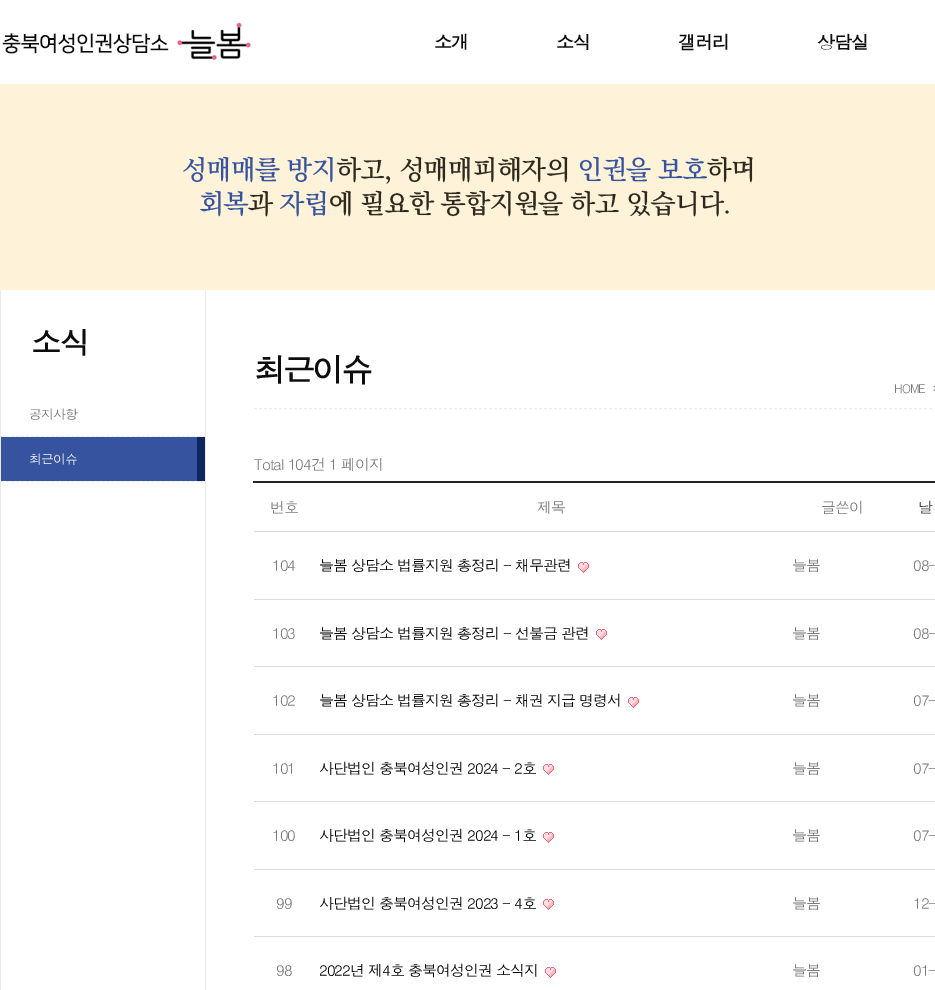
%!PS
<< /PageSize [935 990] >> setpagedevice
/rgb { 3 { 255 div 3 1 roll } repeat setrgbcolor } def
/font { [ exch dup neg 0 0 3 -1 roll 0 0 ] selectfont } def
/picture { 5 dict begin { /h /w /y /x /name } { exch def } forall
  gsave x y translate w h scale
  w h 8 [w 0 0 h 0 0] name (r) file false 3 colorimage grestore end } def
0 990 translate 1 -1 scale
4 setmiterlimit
255 255 255 rgb
0 0 935 990 rectfill
(img/1.rgb) 2 22 249 38 picture
254 242 216 rgb
0 84 935 206 rectfill
(img/2.rgb) 183 156 570 61 picture
233 233 233 rgb
0 290 1 700 rectfill
236 236 236 rgb
[3 2.02] 0 setdash
1 436.5 moveto 205 436.5 lineto stroke
1 481.5 moveto 205 481.5 lineto stroke
[
  [1 437 196 44 54 83 159]
  [197 437 8 44 15 37 93]
  [205 290 1 700 233 233 233]
] { aload pop rgb rectfill } forall
236 236 236 rgb
[3 2] 0 setdash
254 408.5 moveto 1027 408.5 lineto stroke
(img/3.rgb) 933 386 2 5 picture
36 36 36 rgb
253 481 682 2 rectfill
(img/4.rgb) 578 562 11 11 picture
220 220 220 rgb
254 531 681 1 rectfill
(img/4.rgb) 596 629 11 11 picture
254 599 681 1 rectfill
(img/4.rgb) 628 697 11 11 picture
254 666 681 1 rectfill
(img/4.rgb) 543 764 11 11 picture
254 734 681 1 rectfill
(img/4.rgb) 543 832 11 11 picture
254 801 681 1 rectfill
(img/4.rgb) 543 899 11 11 picture
254 869 681 1 rectfill
(img/4.rgb) 545 967 11 11 picture
254 936 681 1 rectfill
/Dotum-Bold 18 font
13 13 13 rgb
434 49 moveto -1 0 (소개) ashow
556 49 moveto -1 0 (소식) ashow
678 49 moveto -1 0 (갤러리) ashow
817 49 moveto -1 0 (상담실) ashow
/Dotum-Bold 30 font
31 354 moveto -1 0 (소식) ashow
/Dotum-Regular 13 font
112 112 112 rgb
29 419 moveto -1 0 (공지사항) ashow
255 255 255 rgb
29 464 moveto -1 0 (최근이슈) ashow
/Dotum-Bold 32 font
13 13 13 rgb
254 382 moveto -3 0 (최근이슈) ashow
/Dotum-Regular 12 font
122 122 122 rgb
894 393 moveto -1 0 (HOME) ashow
/Dotum-Regular 15 font
254 470 moveto -1 0 (Total 104건 1 페이지) ashow
270 513 moveto -1 0 (번호) ashow
537 513 moveto -1 0 (제목) ashow
821 513 moveto -1 0 (글쓴이) ashow
56 56 56 rgb
918 513 moveto -1 0 (날) ashow
122 122 122 rgb
272 571 moveto -1 0 (104) ashow
0 0 0 rgb
319 571 moveto -1 0 (늘봄 상담소 법률지원 총정리 - 채무관련) ashow
122 122 122 rgb
792 571 moveto -1 0 (늘봄) ashow
913 571 moveto -1 0 (08-) ashow
272 639 moveto -1 0 (103) ashow
0 0 0 rgb
319 639 moveto -1 0 (늘봄 상담소 법률지원 총정리 - 선불금 관련) ashow
122 122 122 rgb
792 639 moveto -1 0 (늘봄) ashow
913 639 moveto -1 0 (08-) ashow
272 706 moveto -1 0 (102) ashow
0 0 0 rgb
319 706 moveto -1 0 (늘봄 상담소 법률지원 총정리 - 채권 지급 명령서) ashow
122 122 122 rgb
792 706 moveto -1 0 (늘봄) ashow
913 706 moveto -1 0 (07-) ashow
272 774 moveto -1 0 (101) ashow
0 0 0 rgb
319 774 moveto -1 0 (사단법인 충북여성인권 2024 - 2호) ashow
122 122 122 rgb
792 774 moveto -1 0 (늘봄) ashow
913 774 moveto -1 0 (07-) ashow
272 841 moveto -1 0 (100) ashow
0 0 0 rgb
319 841 moveto -1 0 (사단법인 충북여성인권 2024 - 1호) ashow
122 122 122 rgb
792 841 moveto -1 0 (늘봄) ashow
913 841 moveto -1 0 (07-) ashow
276 909 moveto -1 0 (99) ashow
0 0 0 rgb
319 909 moveto -1 0 (사단법인 충북여성인권 2023 - 4호) ashow
122 122 122 rgb
792 909 moveto -1 0 (늘봄) ashow
913 909 moveto -1 0 (12-) ashow
276 976 moveto -1 0 (98) ashow
0 0 0 rgb
319 976 moveto -1 0 (2022년 제4호 충북여성인권 소식지) ashow
122 122 122 rgb
792 976 moveto -1 0 (늘봄) ashow
913 976 moveto -1 0 (01-) ashow
showpage
